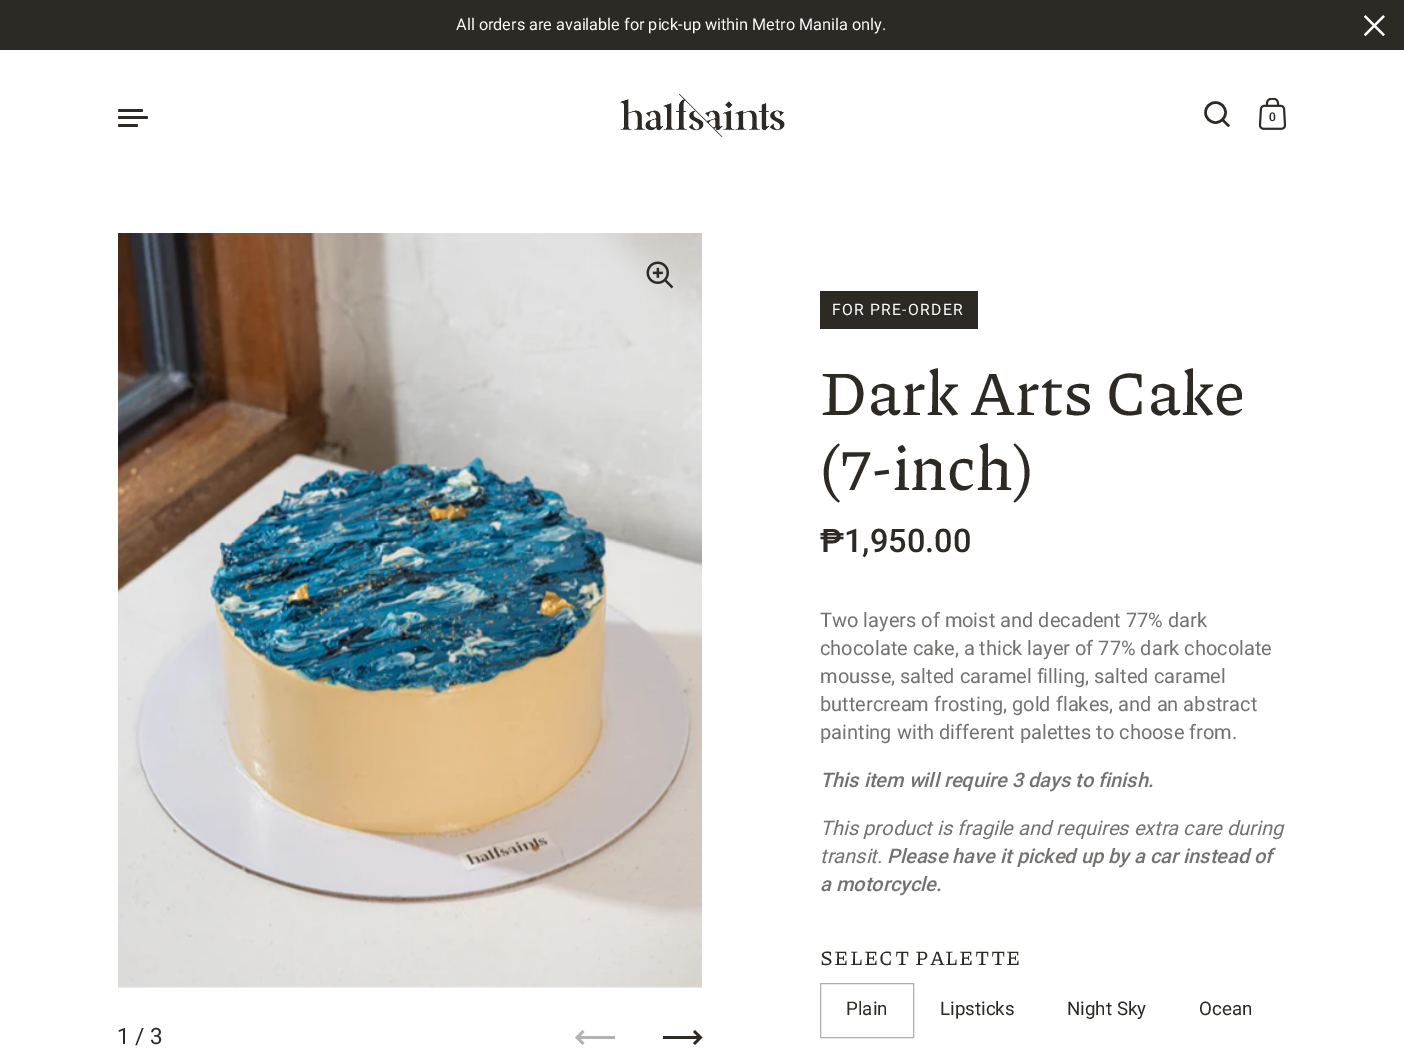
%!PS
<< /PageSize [1404 1050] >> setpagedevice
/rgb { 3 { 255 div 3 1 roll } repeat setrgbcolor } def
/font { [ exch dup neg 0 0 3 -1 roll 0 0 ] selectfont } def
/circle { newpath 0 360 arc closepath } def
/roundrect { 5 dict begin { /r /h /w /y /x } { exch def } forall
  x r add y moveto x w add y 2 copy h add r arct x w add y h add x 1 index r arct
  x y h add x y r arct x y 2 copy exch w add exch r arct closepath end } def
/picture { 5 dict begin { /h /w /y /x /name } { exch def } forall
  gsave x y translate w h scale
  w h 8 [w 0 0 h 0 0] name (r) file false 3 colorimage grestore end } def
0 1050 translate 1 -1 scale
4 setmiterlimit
255 255 255 rgb
0 0 1404 1050 rectfill
45 42 38 rgb
0 0 1404 50 rectfill
(img/1.rgb) 1364 15 21 21 picture
118 109 25 3 1.5 roundrect fill
118 116 30 3 1.5 roundrect fill
118 124 20 3 1.5 roundrect fill
(img/2.rgb) 620 93 165 45 picture
2.5 setlinewidth
1215.5 112.5 10 circle stroke
1222 121 moveto 1224 119.5 lineto 1230 125.5 lineto 1228 127 lineto closepath fill
(img/3.rgb) 1259 98 27 32 picture
820 291 158 38 rectfill
175 174 173 rgb
1 setlinewidth
820.5 983.5 93 54 rectstroke
(img/4.rgb) 118 233 584 755 picture
(img/5.rgb) 646 261 28 28 picture
179 178 177 rgb
577 1036 38 3 rectfill
575 1037.5 moveto 582.5 1045 lineto 584.5 1043 lineto 579 1037.5 lineto 584.5 1032 lineto 582.5 1030 lineto 577 1035.5 lineto closepath fill
45 42 38 rgb
663 1036 38 3 rectfill
702.5 1037.5 moveto 695 1030 lineto 693 1032 lineto 698.5 1037.5 lineto 693 1043 lineto 695 1045 lineto 700.5 1039.5 lineto closepath fill
/Roboto-Regular 16.25 font
255 255 255 rgb
456 30 moveto (All orders are available for pick-up within Metro Manila only.) show
/Roboto-Medium 12 font
45 42 38 rgb
1269 121 moveto (0) show
/Roboto-Regular 15.75 font
255 255 255 rgb
832 315 moveto 1.25 0 (FOR PRE-ORDER) ashow
/Piazzolla-Thin 62.5 font
45 42 38 rgb
820 415 moveto (Dark Arts Cake) show
820 490 moveto (\(7-inch\)) show
/Roboto-Medium 32.5 font
820 552 moveto (₱1,950.00) show
/Roboto-Regular 20 font
116 114 112 rgb
[
  [(Two layers of moist and decadent 77% dark) 820 627]
  [(chocolate cake, a thick layer of 77% dark chocolate) 820 655]
  [(mousse, salted caramel filling, salted caramel) 820 683]
  [(buttercream frosting, gold flakes, and an abstract) 820 711]
  [(painting with different palettes to choose from.) 820 739]
] { aload pop moveto show } forall
/Roboto-MediumItalic 20 font
820 787 moveto (This item will require 3 days to finish.) show
/Roboto-Italic 20 font
820 835 moveto (This product is fragile and requires extra care during) show
820 863 moveto (transit.) show
/Roboto-MediumItalic 20 font
887 863 moveto (Please have it picked up by a car instead of) show
820 891 moveto (a motorcycle.) show
/Piazzolla-Thin 20.25 font
45 42 38 rgb
820 965 moveto 1.25 0 (SELECT PALETTE) ashow
/Roboto-Regular 18.75 font
[
  [(Plain) 846 1015]
  [(Lipsticks) 940 1015]
  [(Night Sky) 1067 1015]
  [(Ocean) 1199 1015]
] { aload pop moveto show } forall
/Roboto-Regular 22.5 font
117 1044 moveto (1 / 3) show
showpage
